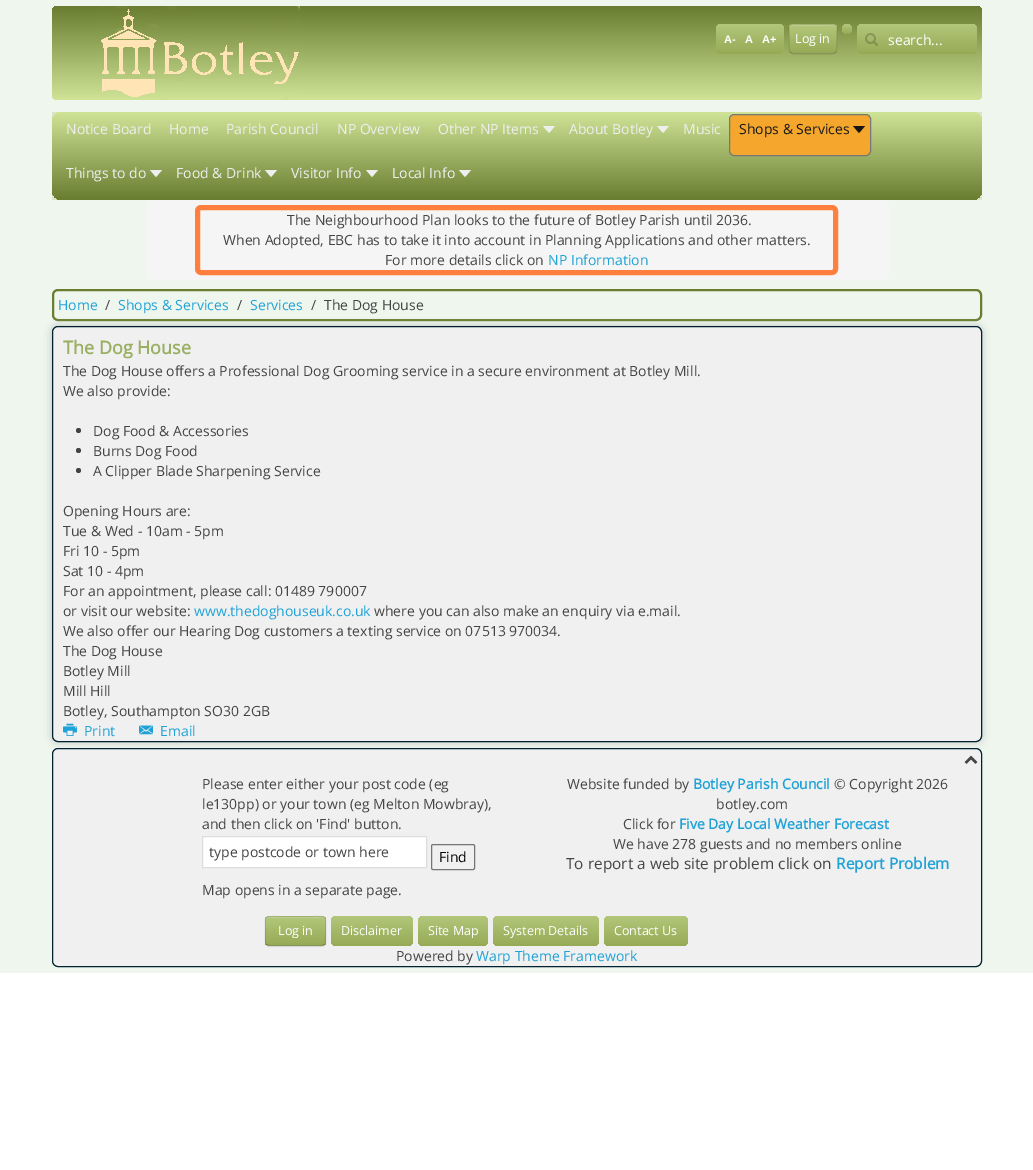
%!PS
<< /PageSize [1033 1170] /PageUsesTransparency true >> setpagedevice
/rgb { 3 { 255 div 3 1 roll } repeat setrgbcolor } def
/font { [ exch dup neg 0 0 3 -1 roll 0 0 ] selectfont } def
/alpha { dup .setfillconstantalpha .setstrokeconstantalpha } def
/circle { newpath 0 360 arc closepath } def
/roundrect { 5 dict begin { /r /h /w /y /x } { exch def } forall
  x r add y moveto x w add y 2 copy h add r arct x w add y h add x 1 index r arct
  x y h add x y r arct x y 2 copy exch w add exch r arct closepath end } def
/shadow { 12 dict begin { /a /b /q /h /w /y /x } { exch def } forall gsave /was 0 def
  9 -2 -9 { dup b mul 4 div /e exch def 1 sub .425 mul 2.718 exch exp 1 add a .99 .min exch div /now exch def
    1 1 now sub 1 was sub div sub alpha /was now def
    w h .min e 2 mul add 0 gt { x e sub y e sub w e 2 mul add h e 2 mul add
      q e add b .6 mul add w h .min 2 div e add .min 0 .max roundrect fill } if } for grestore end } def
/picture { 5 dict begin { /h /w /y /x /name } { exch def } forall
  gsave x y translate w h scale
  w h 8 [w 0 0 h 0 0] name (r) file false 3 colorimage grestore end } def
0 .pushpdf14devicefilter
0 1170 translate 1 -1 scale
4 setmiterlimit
255 255 255 rgb
0 0 1033 1170 rectfill
238 246 238 rgb
0 0 1033 973 rectfill
gsave 52 6 930 94 6 roundrect clip newpath
<< /ShadingType 2 /ColorSpace /DeviceRGB /Coords [517 6 517 100] /Extend [true true] /Function << /FunctionType 2 /Domain [0 1] /C0 [0.412 0.49 0.188] /C1 [0.812 0.894 0.592] /N 1 >> >> shfill grestore
(img/1.rgb) 101 6 199 94 picture
gsave 847 29 5 circle clip newpath
<< /ShadingType 2 /ColorSpace /DeviceRGB /Coords [847 24 847 34] /Extend [true true] /Function << /FunctionType 2 /Domain [0 1] /C0 [0.698 0.78 0.478] /C1 [0.588 0.667 0.337] /N 1 >> >> shfill grestore
gsave 716 24 68 30 6 roundrect clip newpath
<< /ShadingType 2 /ColorSpace /DeviceRGB /Coords [750 24 750 54] /Extend [true true] /Function << /FunctionType 2 /Domain [0 1] /C0 [0.698 0.78 0.478] /C1 [0.588 0.667 0.337] /N 1 >> >> shfill grestore
178 199 122 rgb
789 24 48 30 4 roundrect fill
gsave
789 24 48 30 4 roundrect clip newpath
gsave 789 25 moveto 837 25 lineto 837 53 lineto 789 53 lineto closepath clip newpath
<< /ShadingType 2 /ColorSpace /DeviceRGB /Coords [813 25 813 53] /Extend [true true] /Function << /FunctionType 2 /Domain [0 1] /C0 [0.698 0.78 0.478] /C1 [0.588 0.667 0.337] /N 1 >> >> shfill grestore
grestore
193 209 148 rgb
793 26 moveto 820 26 lineto 829 26 833 25 835 27 curveto 836 27 836 28 836 30 curveto 836 23 833 25 826 25 curveto 800 25 lineto 797 25 790 23 790 28 curveto 790 27 791 26 793 26 curveto closepath 790 51 moveto 790 44 lineto closepath eofill
0.25 alpha
0 0 0 rgb
835.5 52.5 moveto 835 53 834 53.5 833 53.5 curveto 793 53.5 lineto 792 53.5 791 53 790.5 52.5 curveto stroke
0.1 alpha
790.5 52.5 moveto 788.5 50.5 789.5 42 789.5 39 curveto 789.5 25.5 786.5 24.5 799.5 24.5 curveto 826.5 24.5 lineto 839.5 24.5 836.5 25.5 836.5 39 curveto 836.5 42 837.5 50.5 835.5 52.5 curveto stroke
1 alpha
gsave 857 24 120 30 6 roundrect clip newpath
<< /ShadingType 2 /ColorSpace /DeviceRGB /Coords [917 24 917 54] /Extend [true true] /Function << /FunctionType 2 /Domain [0 1] /C0 [0.698 0.78 0.478] /C1 [0.588 0.667 0.337] /N 1 >> >> shfill grestore
(img/2.rgb) 865 33 13 13 picture
218 230 198 rgb
52 112 930 88 rectfill
gsave 52 112 930 88 10 roundrect clip newpath
<< /ShadingType 2 /ColorSpace /DeviceRGB /Coords [517 112 517 200] /Extend [true true] /Function << /FunctionType 2 /Domain [0 1] /C0 [0.812 0.894 0.592] /C1 [0.412 0.49 0.188] /N 1 >> >> shfill grestore
238 238 238 rgb
543 126 moveto 555 126 lineto 549 133 lineto closepath fill
657 126 moveto 669 126 lineto 663 133 lineto closepath fill
244 167 44 rgb
729.5 114.5 141 41 4.5 roundrect gsave fill grestore
119 119 119 rgb
stroke
22 22 22 rgb
853 126 moveto 865 126 lineto 859 133 lineto closepath fill
238 238 238 rgb
150 170 moveto 162 170 lineto 156 177 lineto closepath fill
265 170 moveto 277 170 lineto 271 177 lineto closepath fill
366 170 moveto 378 170 lineto 372 177 lineto closepath fill
459 170 moveto 471 170 lineto 465 177 lineto closepath fill
245 245 245 rgb
145 200 744 80 6 roundrect fill
255 128 62 rgb
5 setlinewidth
197.5 207.5 638 65 3.5 roundrect stroke
106 126 49 rgb
2 setlinewidth
53 290 928 30 5 roundrect stroke
189 189 189 rgb
52 326 930 416 6 4 1 shadow
240 240 240 rgb
52.5 326.5 929 415 5.5 roundrect gsave fill grestore
0 34 50 rgb
1 setlinewidth
stroke
68 68 68 rgb
78.5 430.5 2.5 circle fill
78.5 450.5 2.5 circle fill
78.5 470.5 2.5 circle fill
(img/3.rgb) 63 723 14 13 picture
(img/4.rgb) 139 725 14 10 picture
240 240 240 rgb
52.5 748.5 929 218 5.5 roundrect gsave fill grestore
0 34 50 rgb
stroke
(img/5.rgb) 964 755 14 9 picture
255 255 255 rgb
202.5 836.5 moveto 426.5 836.5 lineto 426.5 867.5 lineto 202.5 867.5 lineto closepath gsave fill grestore
221 221 221 rgb
stroke
118 118 118 rgb
431.5 844.5 43 25 1.5 roundrect stroke
0 0 0 rgb
265 917 61 30 4 1 0.05 shadow
178 199 122 rgb
265 916 61 30 4 roundrect fill
gsave
265 916 61 30 4 roundrect clip newpath
gsave 265 917 moveto 326 917 lineto 326 945 lineto 265 945 lineto closepath clip newpath
<< /ShadingType 2 /ColorSpace /DeviceRGB /Coords [296 917 296 945] /Extend [true true] /Function << /FunctionType 2 /Domain [0 1] /C0 [0.698 0.78 0.478] /C1 [0.588 0.667 0.337] /N 1 >> >> shfill grestore
grestore
193 209 148 rgb
269 918 moveto 322 918 lineto 324 918 325 919 325 921 curveto 325 915 318 917 313 917 curveto 278 917 lineto 273 917 266 915 266 921 curveto 266 919 267 918 269 918 curveto closepath fill
0.25 alpha
0 0 0 rgb
324.5 944.5 moveto 322.5 945.5 lineto 268.5 945.5 lineto 266.5 944.5 lineto stroke
0.1 alpha
266.5 944.5 moveto 264.5 942.5 265.5 934 265.5 931 curveto 265.5 915.5 263 916.5 278 916.5 curveto 313 916.5 lineto 328 916.5 325.5 915.5 325.5 931 curveto 325.5 934 326.5 942.5 324.5 944.5 curveto stroke
1 alpha
gsave 331 916 82 30 6 roundrect clip newpath
<< /ShadingType 2 /ColorSpace /DeviceRGB /Coords [372 916 372 946] /Extend [true true] /Function << /FunctionType 2 /Domain [0 1] /C0 [0.698 0.78 0.478] /C1 [0.588 0.667 0.337] /N 1 >> >> shfill grestore
gsave 418 916 70 30 6 roundrect clip newpath
<< /ShadingType 2 /ColorSpace /DeviceRGB /Coords [453 916 453 946] /Extend [true true] /Function << /FunctionType 2 /Domain [0 1] /C0 [0.698 0.78 0.478] /C1 [0.588 0.667 0.337] /N 1 >> >> shfill grestore
gsave 493 916 106 30 6 roundrect clip newpath
<< /ShadingType 2 /ColorSpace /DeviceRGB /Coords [546 916 546 946] /Extend [true true] /Function << /FunctionType 2 /Domain [0 1] /C0 [0.698 0.78 0.478] /C1 [0.588 0.667 0.337] /N 1 >> >> shfill grestore
gsave 604 916 84 30 6 roundrect clip newpath
<< /ShadingType 2 /ColorSpace /DeviceRGB /Coords [646 916 646 946] /Extend [true true] /Function << /FunctionType 2 /Domain [0 1] /C0 [0.698 0.78 0.478] /C1 [0.588 0.667 0.337] /N 1 >> >> shfill grestore
/LiberationSans-Bold 11 font
255 255 255 rgb
[
  [(A-) 724 43]
  [(A) 745 43]
  [(A+) 762 43]
] { aload pop moveto show } forall
/OpenSans-Regular 12.5 font
795 43 moveto (Log in) show
/OpenSans-Regular 14 font
888 45 moveto (search...) show
238 238 238 rgb
[
  [(Notice Board) 66 134]
  [(Home) 169 134]
  [(Parish Council) 226 134]
  [(NP Overview) 337 134]
  [(Other NP Items) 438 134]
  [(About Botley) 569 134]
  [(Music) 683 134]
] { aload pop moveto show } forall
22 22 22 rgb
739 134 moveto (Shops & Services) show
238 238 238 rgb
[
  [(Things to do) 66 178]
  [(Food & Drink) 176 178]
  [(Visitor Info) 291 178]
  [(Local Info) 392 178]
] { aload pop moveto show } forall
68 68 68 rgb
[
  [(The Neighbourhood Plan looks to the future of Botley Parish until 2036.) 287 225]
  [(When Adopted, EBC has to take it into account in Planning Applications and other matters.) 223 245]
  [(For more details click on) 385 265]
] { aload pop moveto show } forall
31 162 214 rgb
548 265 moveto (NP Information) show
58 310 moveto (Home) show
68 68 68 rgb
105 310 moveto (/) show
31 162 214 rgb
118 310 moveto (Shops & Services) show
68 68 68 rgb
237 310 moveto (/) show
31 162 214 rgb
250 310 moveto (Services) show
68 68 68 rgb
311 310 moveto (/) show
324 310 moveto (The Dog House) show
/OpenSans-Bold 18 font
154 175 98 rgb
63 354 moveto (The Dog House) show
/OpenSans-Regular 14 font
68 68 68 rgb
[
  [(The Dog House offers a Professional Dog Grooming service in a secure environment at Botley Mill.) 63 376]
  [(We also provide:) 63 396]
  [(Dog Food & Accessories) 93 436]
  [(Burns Dog Food) 93 456]
  [(A Clipper Blade Sharpening Service) 93 476]
  [(Opening Hours are:) 63 516]
  [(Tue & Wed - 10am - 5pm) 63 536]
  [(Fri 10 - 5pm) 63 556]
  [(Sat 10 - 4pm) 63 576]
  [(For an appointment, please call: 01489 790007) 63 596]
  [(or visit our website:) 63 616]
] { aload pop moveto show } forall
31 162 214 rgb
194 616 moveto (www.thedoghouseuk.co.uk) show
68 68 68 rgb
[
  [(where you can also make an enquiry via e.mail.) 374 616]
  [(We also offer our Hearing Dog customers a texting service on 07513 970034.) 63 636]
  [(The Dog House) 63 656]
  [(Botley Mill) 63 676]
  [(Mill Hill) 63 696]
  [(Botley, Southampton SO30 2GB) 63 716]
] { aload pop moveto show } forall
31 162 214 rgb
84 736 moveto (Print) show
160 736 moveto (Email) show
68 68 68 rgb
[
  [(Please enter either your post code \(eg) 202 789]
  [(le130pp\) or your town \(eg Melton Mowbray\),) 202 809]
  [(and then click on 'Find' button.) 202 829]
  [(type postcode or town here) 209 857]
] { aload pop moveto show } forall
0 0 0 rgb
439 862 moveto (Find) show
68 68 68 rgb
202 895 moveto (Map opens in a separate page.) show
567 789 moveto (Website funded by) show
/OpenSans-Bold 14 font
31 162 214 rgb
693 789 moveto (Botley Parish Council) show
/OpenSans-Regular 14 font
68 68 68 rgb
[
  [(© Copyright 2026) 834 789]
  [(botley.com) 716 809]
  [(Click for) 623 829]
] { aload pop moveto show } forall
/OpenSans-Bold 14 font
31 162 214 rgb
679 829 moveto (Five Day Local Weather Forecast) show
/OpenSans-Regular 14 font
68 68 68 rgb
613 849 moveto (We have 278 guests and no members online) show
/OpenSans-Regular 15.4 font
566 869 moveto (To report a web site problem click on) show
/OpenSans-Bold 15.4 font
31 162 214 rgb
836 869 moveto (Report Problem) show
/OpenSans-Regular 12.5 font
255 255 255 rgb
[
  [(Log in) 278 935]
  [(Disclaimer) 341 935]
  [(Site Map) 428 935]
  [(System Details) 503 935]
  [(Contact Us) 614 935]
] { aload pop moveto show } forall
/OpenSans-Regular 14 font
68 68 68 rgb
396 961 moveto (Powered by) show
31 162 214 rgb
476 961 moveto (Warp Theme Framework) show
.poppdf14devicefilter showpage
